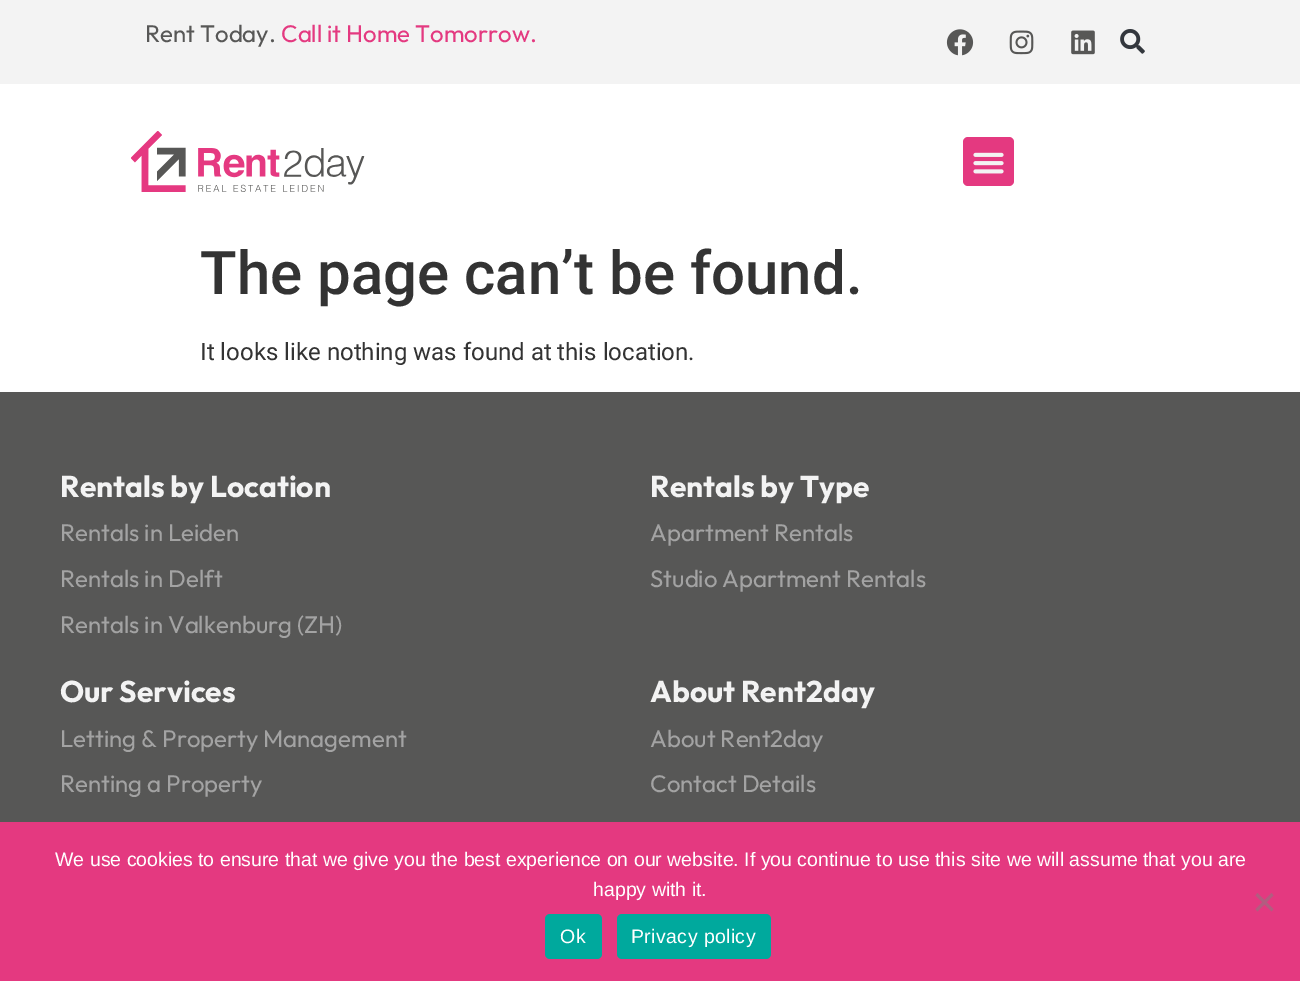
%!PS
<< /PageSize [1300 981] >> setpagedevice
/rgb { 3 { 255 div 3 1 roll } repeat setrgbcolor } def
/font { [ exch dup neg 0 0 3 -1 roll 0 0 ] selectfont } def
/roundrect { 5 dict begin { /r /h /w /y /x } { exch def } forall
  x r add y moveto x w add y 2 copy h add r arct x w add y h add x 1 index r arct
  x y h add x y r arct x y 2 copy exch w add exch r arct closepath end } def
/picture { 5 dict begin { /h /w /y /x /name } { exch def } forall
  gsave x y translate w h scale
  w h 8 [w 0 0 h 0 0] name (r) file false 3 colorimage grestore end } def
0 981 translate 1 -1 scale
4 setmiterlimit
255 255 255 rgb
0 0 1300 981 rectfill
243 243 243 rgb
0 0 1300 84 rectfill
(img/1.rgb) 946 29 28 27 picture
(img/2.rgb) 1009 30 25 25 picture
(img/3.rgb) 1071 30 24 25 picture
(img/4.rgb) 1120 29 25 25 picture
(img/5.rgb) 131 131 234 61 picture
228 57 128 rgb
963 137 51 49 5 roundrect fill
(img/6.rgb) 973 152 31 22 picture
87 87 86 rgb
0 392 1300 430 rectfill
228 57 128 rgb
0 822 1300 159 rectfill
178 93 128 rgb
1271.5 893 moveto 1273.5 895.5 lineto 1257.5 911.5 lineto 1255.5 909 lineto closepath fill
1255.5 895.5 moveto 1257.5 893 lineto 1273.5 909 lineto 1271.5 911.5 lineto closepath fill
0 169 157 rgb
545 914 57 45 5 roundrect fill
617 914 154 45 5 roundrect fill
/Outfit-Regular 24 font
87 87 86 rgb
145 42 moveto (Rent Today.) show
228 57 128 rgb
281 42 moveto (Call it Home Tomorrow.) show
/Roboto-Medium 60 font
51 51 51 rgb
200 294 moveto (The page can’t be found.) show
/Roboto-Regular 24 font
200 360 moveto (It looks like nothing was found at this location.) show
/Outfit-Bold 30 font
243 243 243 rgb
60 497 moveto (Rentals by Location) show
/Outfit-Regular 24 font
163 163 163 rgb
[
  [(Rentals in Leiden) 60 541]
  [(Rentals in Delft) 60 587]
  [(Rentals in Valkenburg \(ZH\)) 60 633]
] { aload pop moveto show } forall
/Outfit-Bold 30 font
243 243 243 rgb
650 497 moveto (Rentals by Type) show
/Outfit-Regular 24 font
163 163 163 rgb
650 541 moveto (Apartment Rentals) show
650 587 moveto (Studio Apartment Rentals) show
/Outfit-Bold 30 font
243 243 243 rgb
60 702 moveto (Our Services) show
/Outfit-Regular 24 font
163 163 163 rgb
60 747 moveto (Letting & Property Management) show
60 792 moveto (Renting a Property) show
/Outfit-Bold 30 font
243 243 243 rgb
650 702 moveto (About Rent2day) show
/Outfit-Regular 24 font
163 163 163 rgb
650 747 moveto (About Rent2day) show
650 792 moveto (Contact Details) show
/LiberationSans-Regular 19.5 font
255 255 255 rgb
55 866 moveto (We use cookies to ensure that we give you the best experience on our website. If you continue to use this site we will assume that you are) show
593 896 moveto (happy with it.) show
560 943 moveto 0.4 0 (Ok) ashow
631 943 moveto 0.4 0 (Privacy policy) ashow
showpage
